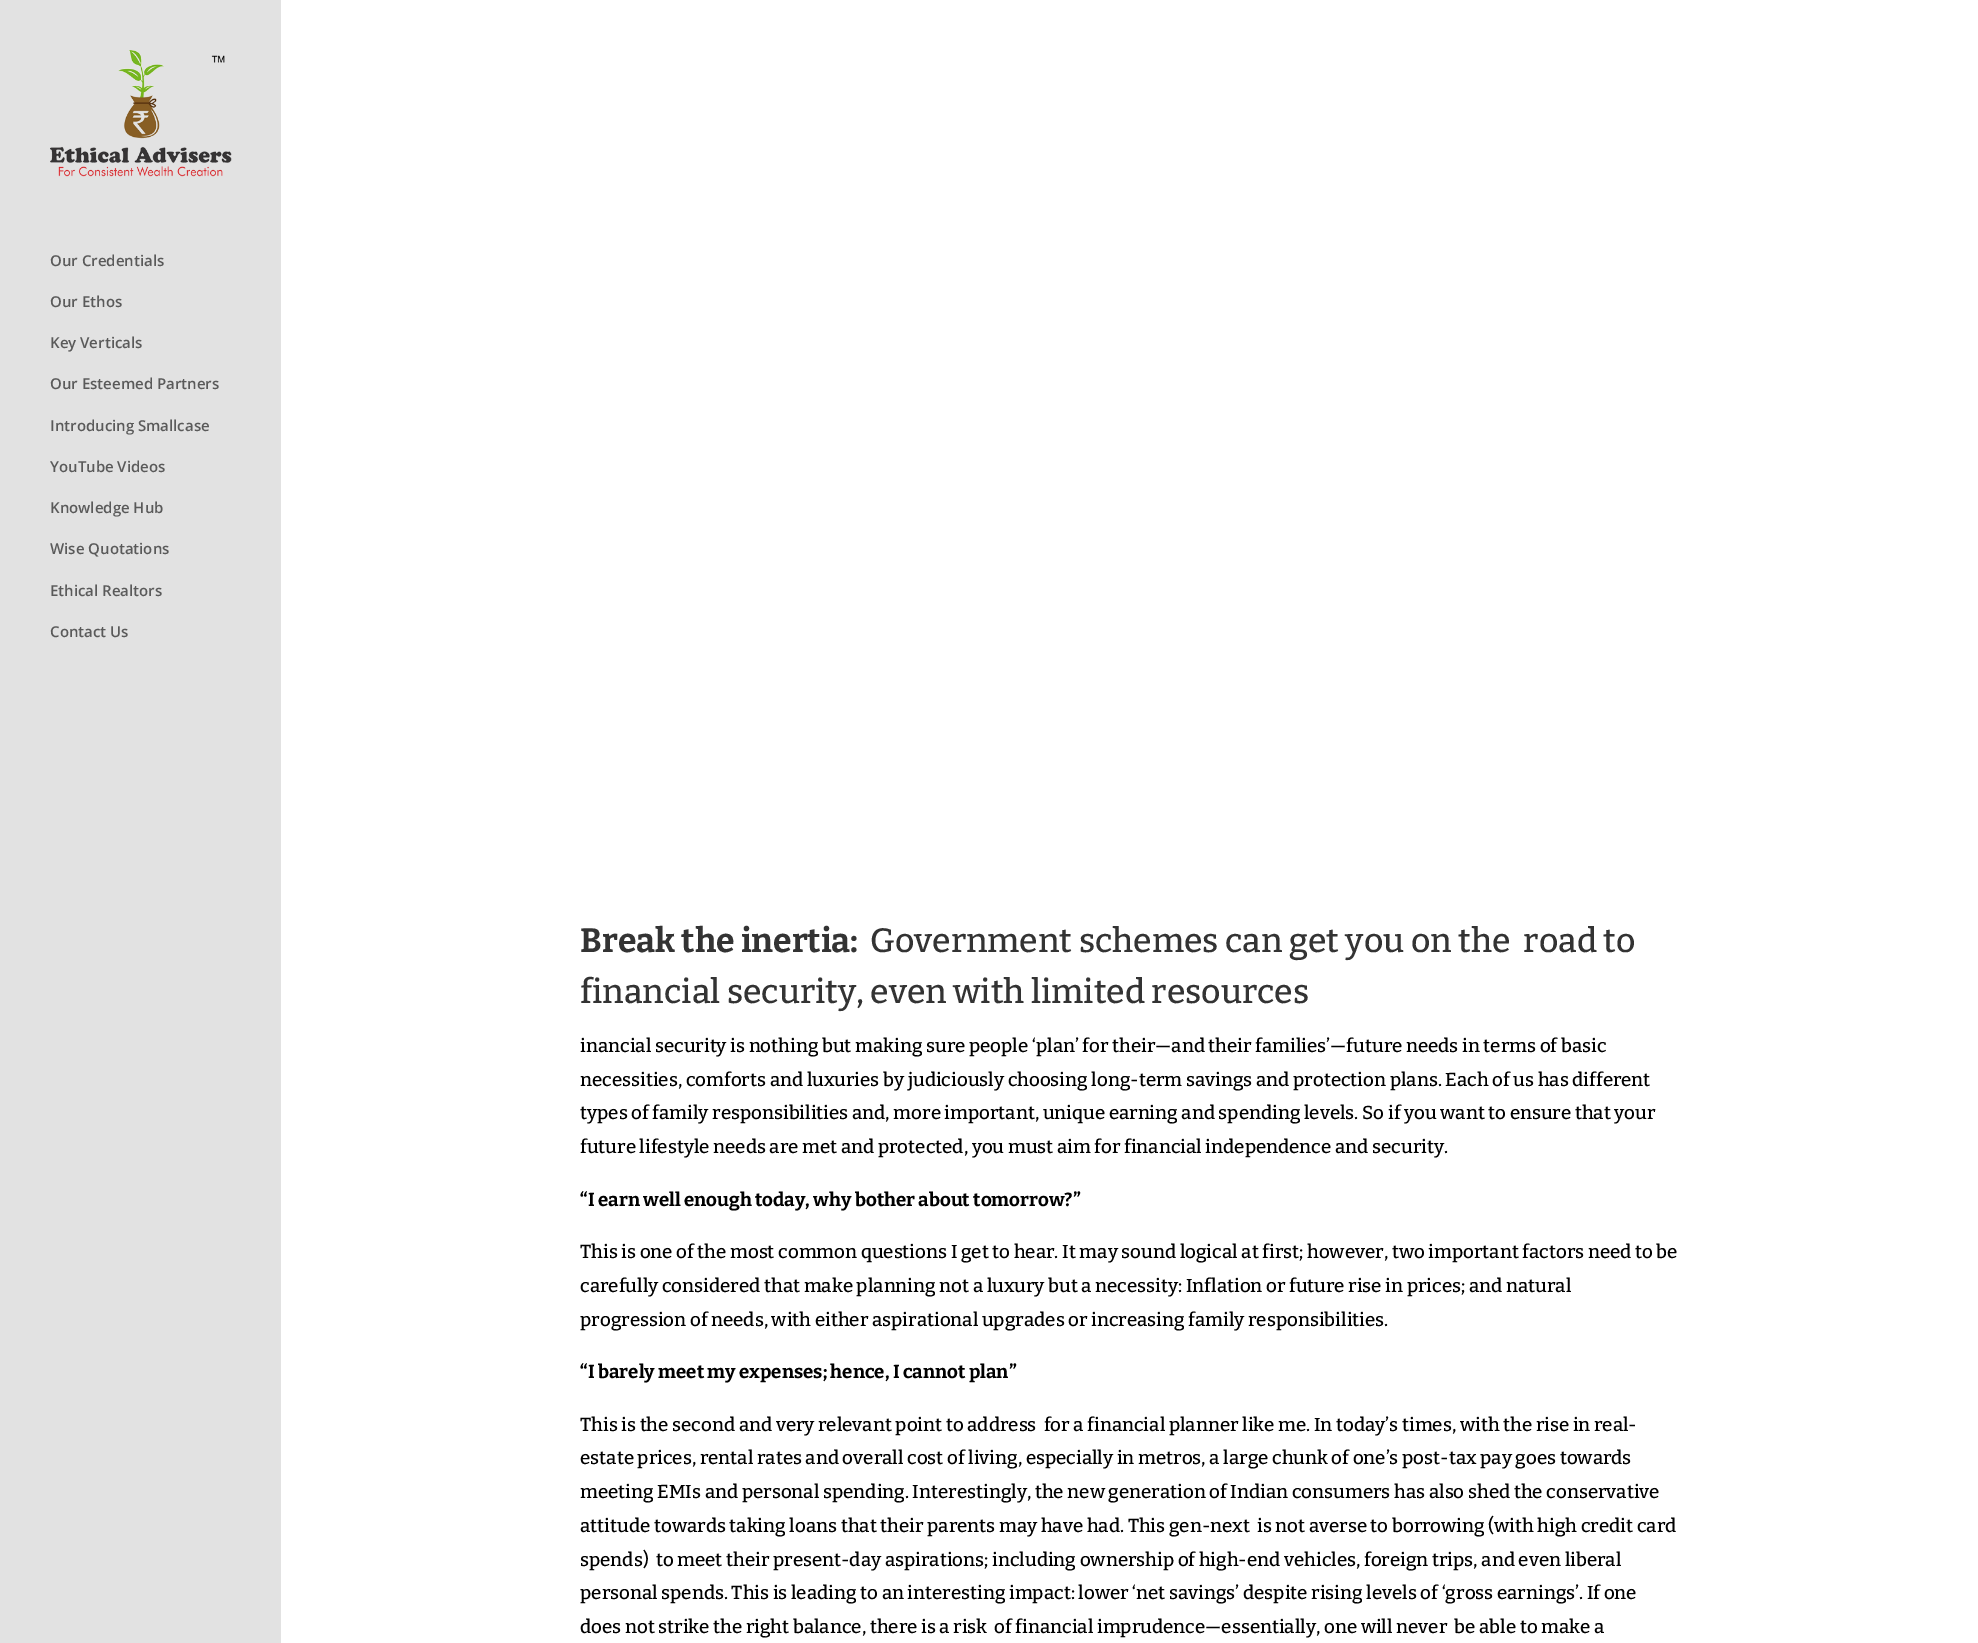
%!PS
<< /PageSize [1978 1643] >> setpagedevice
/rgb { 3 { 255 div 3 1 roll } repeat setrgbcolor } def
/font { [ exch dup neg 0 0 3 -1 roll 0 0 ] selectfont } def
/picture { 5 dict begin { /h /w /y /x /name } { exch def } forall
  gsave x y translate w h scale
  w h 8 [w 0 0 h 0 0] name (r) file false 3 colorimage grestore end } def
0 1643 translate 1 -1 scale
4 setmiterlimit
255 255 255 rgb
0 0 1978 1643 rectfill
226 226 226 rgb
0 0 281 1643 rectfill
(img/1.rgb) 50 50 182 127 picture
/OpenSans-SemiBold 15 font
90 90 90 rgb
[
  [(Our Credentials) 50 266]
  [(Our Ethos) 50 307]
  [(Key Verticals) 50 348]
  [(Our Esteemed Partners) 50 389]
  [(Introducing Smallcase) 50 431]
  [(YouTube Videos) 50 472]
  [(Knowledge Hub) 50 513]
  [(Wise Quotations) 50 554]
  [(Ethical Realtors) 50 596]
  [(Contact Us) 50 637]
] { aload pop moveto show } forall
/Bitter-Thin 33.75 font
51 51 51 rgb
580 952 moveto (Break the inertia:) show
/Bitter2-Thin 33.75 font
870 952 moveto (Government schemes can get you on the  road to) show
580 1003 moveto (financial security, even with limited resources) show
/Bitter2-Thin 18.75 font
0 0 0 rgb
[
  [(inancial security is nothing but making sure people ‘plan’ for their—and their families’—future needs in terms of basic) 580 1052]
  [(necessities, comforts and luxuries by judiciously choosing long-term savings and protection plans. Each of us has different) 580 1086]
  [(types of family responsibilities and, more important, unique earning and spending levels. So if you want to ensure that your) 580 1119]
  [(future lifestyle needs are met and protected, you must aim for financial independence and security.) 580 1153]
] { aload pop moveto show } forall
/Bitter-Thin 18.75 font
580 1206 moveto (“I earn well enough today, why bother about tomorrow?”) show
/Bitter2-Thin 18.75 font
[
  [(This is one of the most common questions I get to hear. It may sound logical at first; however, two important factors need to be) 580 1258]
  [(carefully considered that make planning not a luxury but a necessity: Inflation or future rise in prices; and natural) 580 1292]
  [(progression of needs, with either aspirational upgrades or increasing family responsibilities.) 580 1326]
] { aload pop moveto show } forall
/Bitter-Thin 18.75 font
580 1378 moveto (“I barely meet my expenses; hence, I cannot plan”) show
/Bitter2-Thin 18.75 font
[
  [(This is the second and very relevant point to address  for a financial planner like me. In today’s times, with the rise in real-) 580 1431]
  [(estate prices, rental rates and overall cost of living, especially in metros, a large chunk of one’s post-tax pay goes towards) 580 1464]
  [(meeting EMIs and personal spending. Interestingly, the new generation of Indian consumers has also shed the conservative) 580 1498]
  [(attitude towards taking loans that their parents may have had. This gen-next  is not averse to borrowing \(with high credit card) 580 1532]
  [(spends\)  to meet their present-day aspirations; including ownership of high-end vehicles, foreign trips, and even liberal) 580 1566]
  [(personal spends. This is leading to an interesting impact: lower ‘net savings’ despite rising levels of ‘gross earnings’. If one) 580 1599]
  [(does not strike the right balance, there is a risk  of financial imprudence—essentially, one will never  be able to make a) 580 1633]
] { aload pop moveto show } forall
showpage
